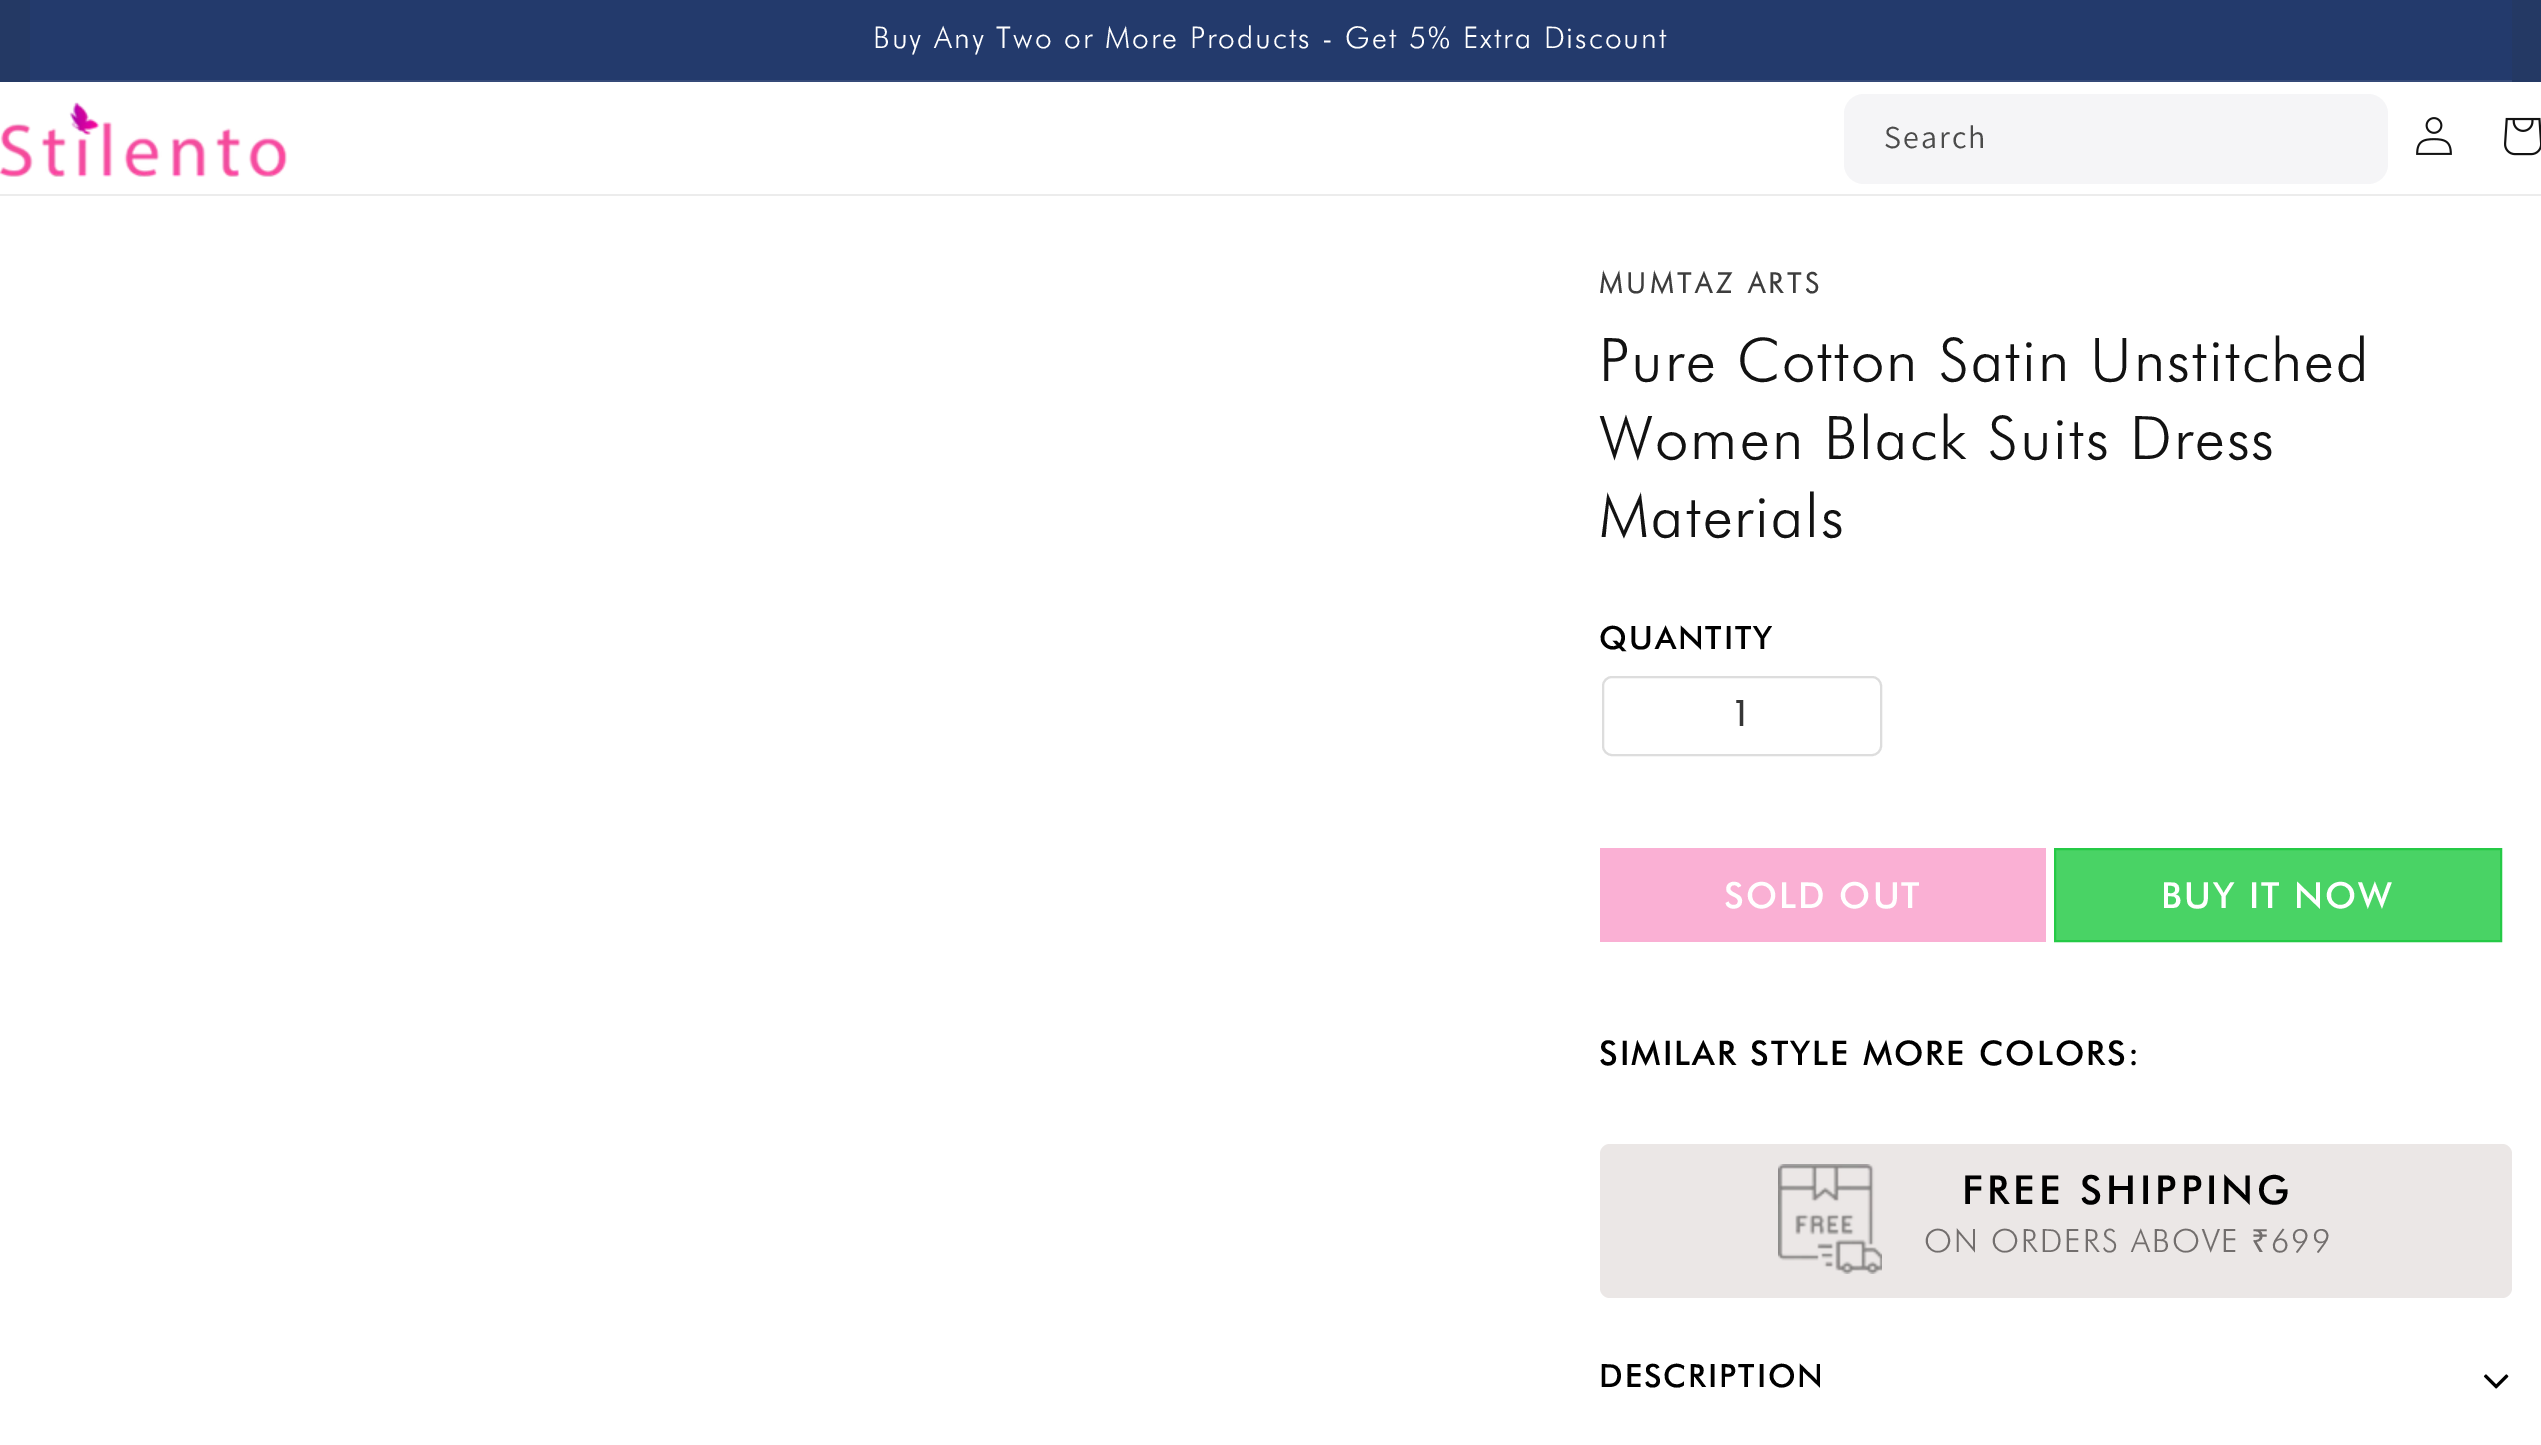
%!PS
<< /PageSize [2541 1445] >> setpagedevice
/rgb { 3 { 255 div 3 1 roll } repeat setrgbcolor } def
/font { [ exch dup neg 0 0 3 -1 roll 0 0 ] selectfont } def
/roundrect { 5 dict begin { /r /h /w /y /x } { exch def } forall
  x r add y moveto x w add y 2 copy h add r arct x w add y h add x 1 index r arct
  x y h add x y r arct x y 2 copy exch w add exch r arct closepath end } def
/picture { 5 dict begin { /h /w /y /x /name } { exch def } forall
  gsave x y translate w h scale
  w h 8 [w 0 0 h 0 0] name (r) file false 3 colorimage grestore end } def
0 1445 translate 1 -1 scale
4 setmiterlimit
255 255 255 rgb
0 0 2541 1445 rectfill
[
  [0 0 2541 82 36 57 100]
  [30 0 2482 80 35 58 108]
  [30 80 2482 2 53 74 120]
  [0 194 2541 2 236 236 236]
] { aload pop rgb rectfill } forall
(img/1.rgb) 0 102 287 75 picture
245 245 247 rgb
1844 94 544 90 20 roundrect fill
(img/2.rgb) 2416 117 36 38 picture
(img/3.rgb) 2504 117 37 39 picture
221 221 221 rgb
2 setlinewidth
1603 677 278 78 9 roundrect stroke
250 176 212 rgb
1600 848 446 94 rectfill
73 211 101 rgb
2055 849 moveto 2501 849 lineto 2501 941 lineto 2055 941 lineto closepath gsave fill grestore
37 202 70 rgb
stroke
235 231 230 rgb
1600 1144 912 154 10 roundrect fill
(img/4.rgb) 1778 1164 104 110 picture
(img/5.rgb) 2483 1374 26 15 picture
/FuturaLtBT-Light 30 font
255 255 255 rgb
873 48 moveto 2 0 (Buy Any Two or More Products - Get 5% Extra Discount) ashow
/Assistant-Regular 32 font
75 75 75 rgb
1884 148 moveto 2 0 (Search) ashow
/FuturaLtBT-Bold 28 font
61 61 61 rgb
1599 293 moveto 4 0 (MUMTAZ ARTS) ashow
/FuturaLtBT-Light 60 font
18 18 18 rgb
1599 381 moveto 2 0 (Pure Cotton Satin Unstitched) ashow
1599 459 moveto 2 0 (Women Black Suits Dress) ashow
1599 537 moveto 2 0 (Materials) ashow
/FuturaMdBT-Medium 32 font
0 0 0 rgb
1599 649 moveto 2 0 (QUANTITY) ashow
/Poppins-Regular 36 font
54 54 54 rgb
1735 726 moveto (1) show
/FuturaMdBT-Medium 36 font
255 255 255 rgb
1724 908 moveto 2 0 (SOLD OUT) ashow
2161 908 moveto 2 0 (BUY IT NOW) ashow
/FuturaMdBT-Medium 34 font
0 0 0 rgb
1599 1065 moveto 2 0 (SIMILAR STYLE MORE COLORS:) ashow
/FuturaMdBT-Medium 40 font
1962 1204 moveto 4 0 (FREE SHIPPING) ashow
/FuturaLtBT-Light 32 font
114 110 109 rgb
1924 1252 moveto 2 0 (ON ORDERS ABOVE) ashow
/NotoSans-Regular 32 font
2251 1252 moveto 2 0 (₹) ashow
/FuturaLtBT-Light 32 font
2271 1252 moveto 2 0 (699) ashow
/FuturaMdBT-Medium 32 font
0 0 0 rgb
1599 1387 moveto 2 0 (DESCRIPTION) ashow
showpage
